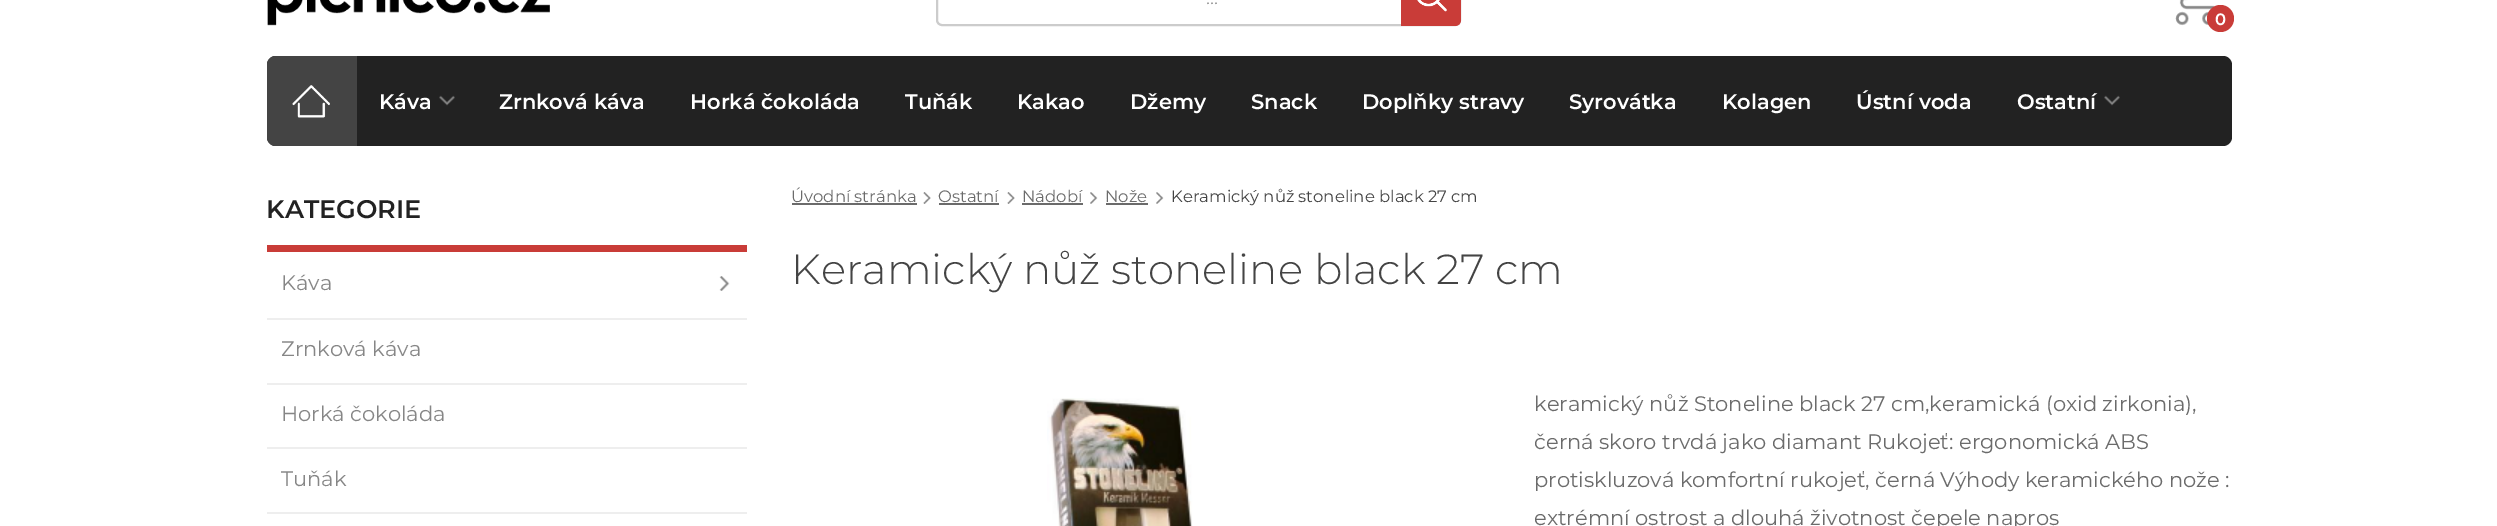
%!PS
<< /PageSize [2497 526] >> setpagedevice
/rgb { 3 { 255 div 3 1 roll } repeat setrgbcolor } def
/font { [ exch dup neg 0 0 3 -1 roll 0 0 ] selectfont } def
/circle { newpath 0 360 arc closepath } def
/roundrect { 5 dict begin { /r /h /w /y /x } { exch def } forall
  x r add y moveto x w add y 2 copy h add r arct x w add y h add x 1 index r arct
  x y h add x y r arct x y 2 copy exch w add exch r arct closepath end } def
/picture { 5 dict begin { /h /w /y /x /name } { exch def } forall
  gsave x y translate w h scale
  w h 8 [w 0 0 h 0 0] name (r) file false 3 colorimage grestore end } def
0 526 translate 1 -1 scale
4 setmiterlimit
255 255 255 rgb
0 0 2497 526 rectfill
(img/1.rgb) 267 0 283 26 picture
204 204 204 rgb
2 setlinewidth
937 -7 523 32 5 roundrect stroke
201 60 56 rgb
1401 -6 moveto 1455 -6 lineto 1458.5 -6 1461 -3.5 1461 0 curveto 1461 20 lineto 1461 23.5 1458.5 26 1455 26 curveto 1401 26 lineto closepath fill
(img/2.rgb) 1417 0 30 12 picture
(img/3.rgb) 2175 0 40 26 picture
2220.5 18.5 13.5 circle fill
34 34 34 rgb
267 56 1965 90 9 roundrect fill
68 68 68 rgb
276 56 moveto 357 56 lineto 357 146 lineto 276 146 lineto 271 146 267 142 267 137 curveto 267 65 lineto 267 60 271 56 276 56 curveto closepath fill
(img/4.rgb) 292 85 38 33 picture
(img/5.rgb) 439 95 16 11 picture
(img/5.rgb) 2104 95 16 11 picture
201 60 56 rgb
267 245 480 7 rectfill
(img/6.rgb) 719 276 11 15 picture
[
  [267 318 480 2 238 238 238]
  [267 383 480 2 238 238 238]
  [267 447 480 2 238 238 238]
  [267 512 480 2 238 238 238]
  [792 203 125 2 107 107 107]
] { aload pop rgb rectfill } forall
(img/7.rgb) 923 192 8 12 picture
939 203 60 2 rectfill
(img/7.rgb) 1007 192 8 12 picture
1022 203 61 2 rectfill
(img/8.rgb) 1090 192 8 12 picture
1106 203 42 2 rectfill
(img/9.rgb) 1156 192 8 12 picture
(img/10.rgb) 1047 398 146 128 picture
/Montserrat-Light 20 font
117 117 117 rgb
1206 4 moveto (...) show
/Montserrat-SemiBold 16.5 font
255 255 255 rgb
2215 25 moveto (0) show
/Montserrat-SemiBold 21 font
[
  [(Káva) 379 109]
  [(Zrnková káva) 499 109]
  [(Horká čokoláda) 690 109]
  [(Tuňák) 905 109]
  [(Kakao) 1017 109]
  [(Džemy) 1130 109]
  [(Snack) 1251 109]
  [(Doplňky stravy) 1362 109]
  [(Syrovátka) 1569 109]
  [(Kolagen) 1722 109]
  [(Ústní voda) 1856 109]
  [(Ostatní) 2017 109]
] { aload pop moveto show } forall
/Montserrat-SemiBold 25.5 font
34 34 34 rgb
266 218 moveto (KATEGORIE) show
/Montserrat-Regular 21 font
134 134 134 rgb
[
  [(Káva) 281 290]
  [(Zrnková káva) 281 356]
  [(Horká čokoláda) 281 421]
  [(Tuňák) 281 486]
] { aload pop moveto show } forall
/Montserrat-Regular 16.5 font
107 107 107 rgb
[
  [(Úvodní stránka) 791 202]
  [(Ostatní) 938 202]
  [(Nádobí) 1022 202]
  [(Nože) 1105 202]
] { aload pop moveto show } forall
68 68 68 rgb
1171 202 moveto (Keramický nůž stoneline black 27 cm) show
/Montserrat-Light 42 font
791 284 moveto (Keramický nůž stoneline black 27 cm) show
/Montserrat-Regular 21 font
107 107 107 rgb
[
  [(keramický nůž Stoneline black 27 cm,keramická \(oxid zirkonia\),) 1534 411]
  [(černá skoro trvdá jako diamant Rukojeť: ergonomická ABS) 1534 449]
  [(protiskluzová komfortní rukojeť, černá Výhody keramického nože :) 1534 487]
  [(extrémní ostrost a dlouhá životnost čepele napros) 1534 525]
] { aload pop moveto show } forall
showpage
